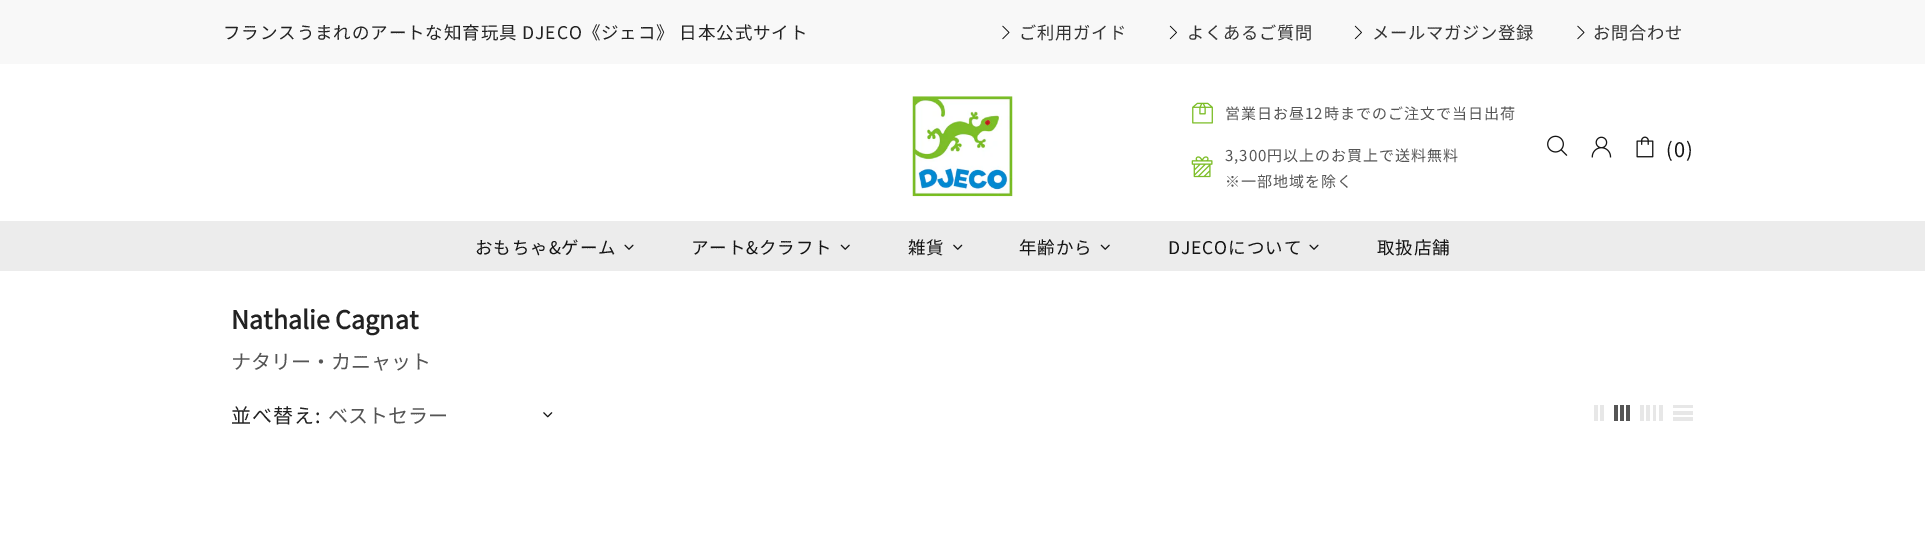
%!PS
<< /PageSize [1925 558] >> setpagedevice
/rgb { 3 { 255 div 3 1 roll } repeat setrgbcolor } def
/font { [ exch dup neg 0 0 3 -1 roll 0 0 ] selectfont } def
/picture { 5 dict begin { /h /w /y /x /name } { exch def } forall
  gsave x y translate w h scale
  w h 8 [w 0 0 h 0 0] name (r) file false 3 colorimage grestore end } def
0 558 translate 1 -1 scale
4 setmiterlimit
255 255 255 rgb
0 0 1925 558 rectfill
248 248 248 rgb
0 0 1925 64 rectfill
(img/1.rgb) 1002 25 8 15 picture
(img/2.rgb) 1169 25 8 15 picture
(img/2.rgb) 1354 25 8 15 picture
(img/1.rgb) 1577 25 8 15 picture
(img/3.rgb) 912 96 101 101 picture
(img/4.rgb) 1192 102 21 22 picture
(img/5.rgb) 1191 156 22 22 picture
(img/6.rgb) 1547 135 21 21 picture
(img/7.rgb) 1591 136 21 22 picture
(img/8.rgb) 1636 136 18 22 picture
236 236 236 rgb
0 221 1925 50 rectfill
(img/9.rgb) 624 244 10 6 picture
(img/10.rgb) 840 244 10 6 picture
(img/11.rgb) 953 244 10 6 picture
(img/10.rgb) 1100 244 10 6 picture
(img/9.rgb) 1309 244 10 6 picture
(img/12.rgb) 543 412 10 6 picture
[
  [1594 405 4 16 231 231 231]
  [1600 405 4 16 231 231 231]
  [1614 405 4 16 85 85 85]
  [1620 405 4 16 85 85 85]
  [1626 405 4 16 85 85 85]
  [1640 405 4 16 231 231 231]
  [1646 405 4 16 231 231 231]
  [1653 405 3 16 231 231 231]
  [1659 405 4 16 231 231 231]
  [1673 405 20 3 231 231 231]
  [1673 411 20 4 231 231 231]
  [1673 417 20 4 231 231 231]
] { aload pop rgb rectfill } forall
/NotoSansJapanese-Regular 17.5 font
34 34 34 rgb
223 39 moveto 0.9 0 (フランスうまれのアートな知育玩具 DJECO《ジェコ》 日本公式サイト) ashow
/NotoSansJapanese-Regular 17.25 font
51 51 51 rgb
1019 39 moveto 0.75 0 (ご利用ガイド) ashow
1187 39 moveto 0.75 0 (よくあるご質問) ashow
1372 39 moveto 0.75 0 (メールマガジン登録) ashow
1593 39 moveto 0.75 0 (お問合わせ) ashow
/NotoSansJapanese-Regular 15 font
85 85 85 rgb
1225 119 moveto 1 0 (営業日お昼12時までのご注文で当日出荷) ashow
1225 161 moveto 1 0 (3,300円以上のお買上で送料無料) ashow
1225 187 moveto 1 0 (※一部地域を除く) ashow
/NotoSansJapanese-Regular 20 font
20 20 20 rgb
1666 157 moveto 1 0 (\(0\)) ashow
/NotoSansJapanese-Regular 17.5 font
475 254 moveto 0.9 0 (おもちゃ&ゲーム) ashow
691 254 moveto 0.9 0 (アート&クラフト) ashow
908 254 moveto 0.9 0 (雑貨) ashow
1019 254 moveto 0.9 0 (年齢から) ashow
1168 254 moveto 0.9 0 (DJECOについて) ashow
1377 254 moveto 0.9 0 (取扱店舗) ashow
/NotoSansJapanese-Bold 25 font
34 34 34 rgb
231 329 moveto (Nathalie Cagnat) show
/NotoSansJapanese-Regular 20 font
85 85 85 rgb
231 369 moveto (ナタリー・カニャット) show
34 34 34 rgb
231 423 moveto 1 0 (並べ替え:) ashow
85 85 85 rgb
328 423 moveto (ベストセラー) show
showpage
